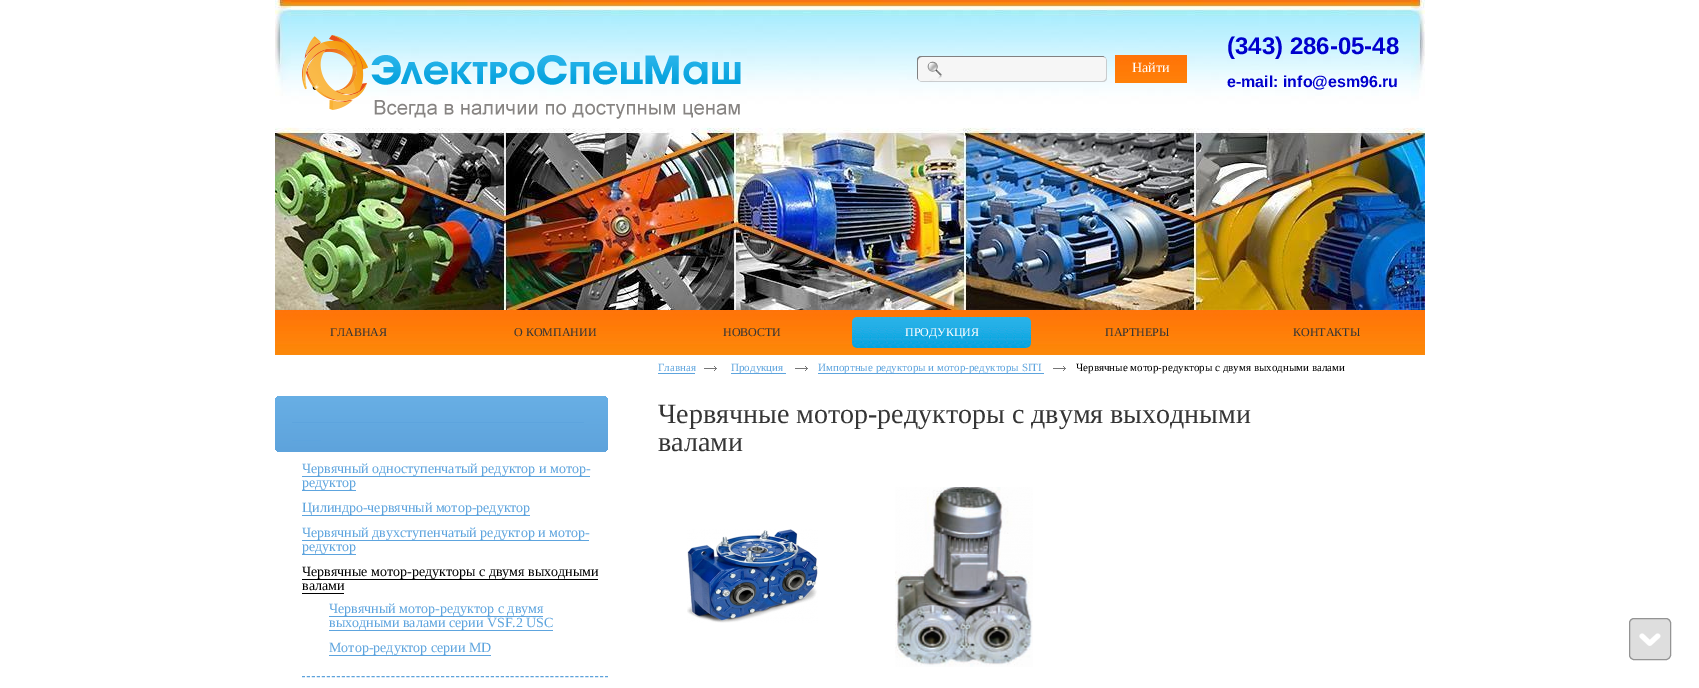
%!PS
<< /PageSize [1699 688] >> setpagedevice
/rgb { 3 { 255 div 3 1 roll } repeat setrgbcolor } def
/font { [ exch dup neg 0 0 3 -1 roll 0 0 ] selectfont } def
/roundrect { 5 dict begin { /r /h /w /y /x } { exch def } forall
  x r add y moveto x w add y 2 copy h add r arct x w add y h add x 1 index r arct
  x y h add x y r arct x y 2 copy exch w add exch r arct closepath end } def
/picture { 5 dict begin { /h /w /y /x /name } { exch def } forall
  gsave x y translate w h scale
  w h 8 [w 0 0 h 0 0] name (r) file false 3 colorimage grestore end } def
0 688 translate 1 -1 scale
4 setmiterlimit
255 255 255 rgb
0 0 1699 688 rectfill
(img/1.rgb) 275 0 1150 310 picture
(img/2.rgb) 302 35 439 84 picture
(img/3.rgb) 917 56 190 26 picture
(img/4.rgb) 1115 55 72 28 picture
(img/5.rgb) 275 310 1150 45 picture
(img/6.rgb) 852 317 179 31 picture
93 164 222 rgb
658 373 37 1 rectfill
(img/7.rgb) 704 366 13 5 picture
731 373 55 1 rectfill
(img/7.rgb) 795 366 13 5 picture
818 373 226 1 rectfill
(img/7.rgb) 1053 366 13 5 picture
(img/8.rgb) 687 529 131 94 picture
(img/9.rgb) 895 487 138 180 picture
gsave 275 396 333 56 5 roundrect clip newpath
<< /ShadingType 2 /ColorSpace /DeviceRGB /Coords [442 396 442 452] /Extend [true true] /Function << /FunctionType 2 /Domain [0 1] /C0 [0.408 0.686 0.898] /C1 [0.369 0.639 0.863] /N 1 >> >> shfill grestore
[
  [292 422 292 1 93 164 222]
  [292 440 29 1 93 164 222]
  [302 476 288 1 93 164 222]
  [302 490 54 1 93 164 222]
  [302 515 228 1 93 164 222]
  [302 540 287 1 93 164 222]
  [302 554 54 1 93 164 222]
  [302 579 296 1 0 0 0]
  [302 593 42 1 0 0 0]
] { aload pop rgb rectfill } forall
94 163 220 rgb
[3 1.97] 0 setdash
302 676.5 moveto 608 676.5 lineto stroke
[
  [329 616 214 1 93 164 222]
  [329 630 224 1 93 164 222]
  [329 655 162 1 93 164 222]
] { aload pop rgb rectfill } forall
(img/10.rgb) 1629 618 42 42 picture
148 148 148 rgb
[] 0 setdash
1629.5 618.5 41 41 4.5 roundrect stroke
/LiberationSerif-Regular 14 font
255 255 255 rgb
1132 72 moveto (Найти) show
/LiberationSans-Bold 24 font
0 0 205 rgb
1227 54 moveto (\(343\) 286-05-48) show
/LiberationSans-Bold 16 font
1227 87 moveto (e-mail: info@esm96.ru) show
/LiberationSerif-Regular 12 font
53 53 53 rgb
[
  [(ГЛАВНАЯ) 330 336]
  [(О КОМПАНИИ) 514 336]
  [(НОВОСТИ) 723 336]
] { aload pop moveto show } forall
255 255 255 rgb
905 336 moveto (ПРОДУКЦИЯ) show
53 53 53 rgb
1105 336 moveto (ПАРТНЕРЫ) show
1293 336 moveto (КОНТАКТЫ) show
/LiberationSerif-Regular 11 font
93 164 222 rgb
[
  [(Главная) 658 371]
  [(Продукция) 731 371]
  [(Импортные редукторы и мотор-редукторы SITI) 818 371]
] { aload pop moveto show } forall
0 0 0 rgb
1076 371 moveto (Червячные мотор-редукторы с двумя выходными валами) show
/LiberationSerif-Regular 28 font
53 53 53 rgb
658 423 moveto (Червячные мотор-редукторы с двумя выходными) show
658 451 moveto (валами) show
/LiberationSerif-Regular 14 font
93 164 222 rgb
[
  [(Червячный одноступенчатый редуктор и мотор-) 302 473]
  [(редуктор) 302 487]
  [(Цилиндро-червячный мотор-редуктор) 302 512]
  [(Червячный двухступенчатый редуктор и мотор-) 302 537]
  [(редуктор) 302 551]
] { aload pop moveto show } forall
0 0 0 rgb
302 576 moveto (Червячные мотор-редукторы с двумя выходными) show
302 590 moveto (валами) show
93 164 222 rgb
[
  [(Червячный мотор-редуктор с двумя) 329 613]
  [(выходными валами серии VSF.2 USC) 329 627]
  [(Мотор-редуктор серии MD) 329 652]
] { aload pop moveto show } forall
showpage
